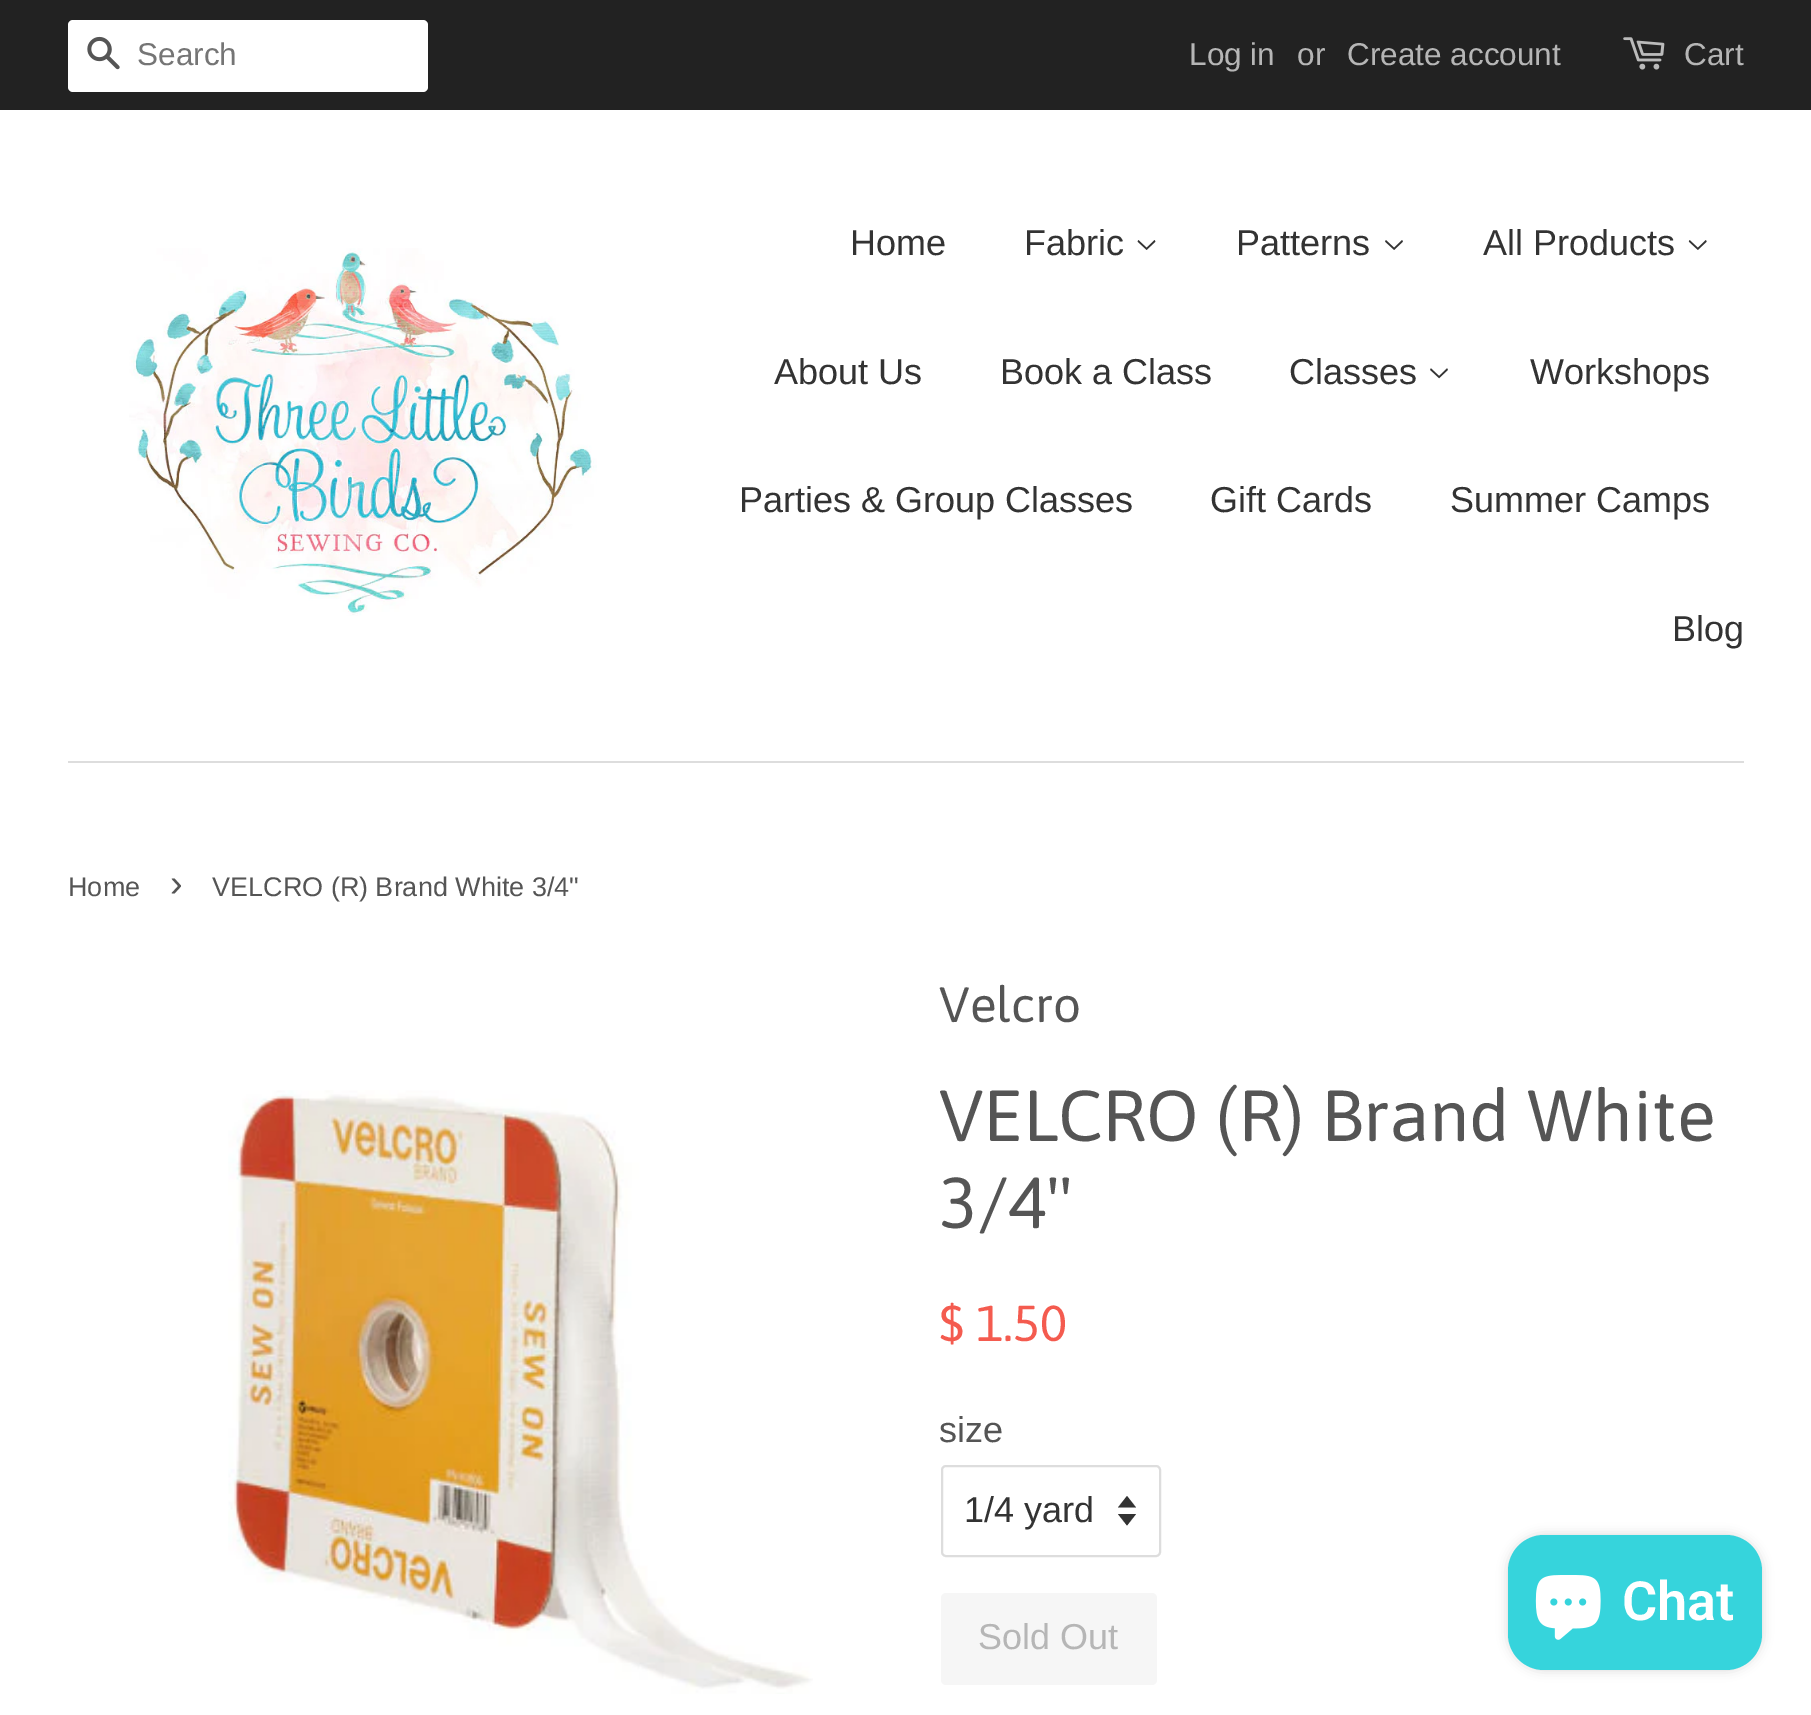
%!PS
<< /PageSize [1811 1715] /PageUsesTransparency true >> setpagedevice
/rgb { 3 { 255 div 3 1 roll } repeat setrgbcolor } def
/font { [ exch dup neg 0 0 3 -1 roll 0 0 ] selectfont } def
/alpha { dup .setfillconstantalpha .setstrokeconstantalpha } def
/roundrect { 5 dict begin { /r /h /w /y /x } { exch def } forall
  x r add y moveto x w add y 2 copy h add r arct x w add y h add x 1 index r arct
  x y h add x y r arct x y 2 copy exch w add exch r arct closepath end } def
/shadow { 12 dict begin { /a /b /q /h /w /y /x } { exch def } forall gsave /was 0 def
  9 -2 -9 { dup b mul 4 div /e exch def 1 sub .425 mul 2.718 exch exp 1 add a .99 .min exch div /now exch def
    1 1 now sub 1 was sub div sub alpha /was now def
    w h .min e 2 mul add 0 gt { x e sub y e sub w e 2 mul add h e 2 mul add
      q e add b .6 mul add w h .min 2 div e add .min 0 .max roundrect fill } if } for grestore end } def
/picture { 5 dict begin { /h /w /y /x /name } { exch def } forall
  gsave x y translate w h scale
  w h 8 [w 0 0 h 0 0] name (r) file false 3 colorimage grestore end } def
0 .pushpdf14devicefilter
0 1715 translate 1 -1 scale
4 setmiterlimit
255 255 255 rgb
0 0 1811 1715 rectfill
34 34 34 rgb
0 0 1811 110 rectfill
255 255 255 rgb
68 20 360 72 5 roundrect fill
(img/1.rgb) 87 36 33 34 picture
(img/2.rgb) 1623 37 42 33 picture
221 221 221 rgb
68 761 1676 2 rectfill
(img/3.rgb) 129 248 468 368 picture
(img/4.rgb) 1137 240 19 10 picture
(img/5.rgb) 1385 240 18 10 picture
(img/6.rgb) 1688 240 19 10 picture
(img/7.rgb) 1430 368 18 11 picture
(img/8.rgb) 228 1090 585 604 picture
51 51 51 rgb
1118 1514 moveto 1127 1525.5 lineto 1136 1514 lineto closepath 1127 1496 moveto 1118 1507.5 lineto 1136 1507.5 lineto closepath fill
221 221 221 rgb
2 setlinewidth
942 1466 218 90 4 roundrect stroke
246 246 246 rgb
941 1593 216 92 5 roundrect fill
0 0 0 rgb
1508 1535 254 135 36 5.5 0.15 shadow
54 212 220 rgb
1508 1535 254 135 36 roundrect fill
(img/9.rgb) 1535 1575 66 65 picture
/LiberationSans-Regular 31.5 font
117 117 117 rgb
137 65 moveto (Search) show
182 182 182 rgb
[
  [(Log in) 1189 65]
  [(or) 1297 65]
  [(Create account) 1347 65]
  [(Cart) 1684 65]
] { aload pop moveto show } forall
/LiberationSans-Regular 36 font
51 51 51 rgb
[
  [(Home) 850 255]
  [(Fabric) 1024 255]
  [(Patterns) 1236 255]
  [(All Products) 1483 255]
  [(About Us) 774 384]
  [(Book a Class) 1000 384]
  [(Classes) 1289 384]
  [(Workshops) 1530 384]
  [(Parties & Group Classes) 739 512]
  [(Gift Cards) 1210 512]
  [(Summer Camps) 1450 512]
  [(Blog) 1672 641]
] { aload pop moveto show } forall
/LiberationSans-Regular 27 font
85 85 85 rgb
68 896 moveto (Home) show
/LiberationSans-Regular 38 font
170 896 moveto (›) show
/LiberationSans-Regular 27 font
212 896 moveto (VELCRO \(R\) Brand White 3/4") show
/Asap-Regular 49.5 font
939 1022 moveto (Velcro) show
/Asap-Regular 72 font
939 1141 moveto (VELCRO \(R\) Brand White) show
939 1228 moveto (3/4") show
/Asap-Regular 50.5 font
244 91 79 rgb
939 1341 moveto ($ 1.50) show
/LiberationSans-Regular 36 font
85 85 85 rgb
939 1442 moveto (size) show
51 51 51 rgb
964 1522 moveto (1/4 yard) show
182 182 182 rgb
978 1649 moveto (Sold Out) show
/Roboto-SemiBold 54 font
255 255 255 rgb
1622 1620 moveto (Chat) show
.poppdf14devicefilter showpage
